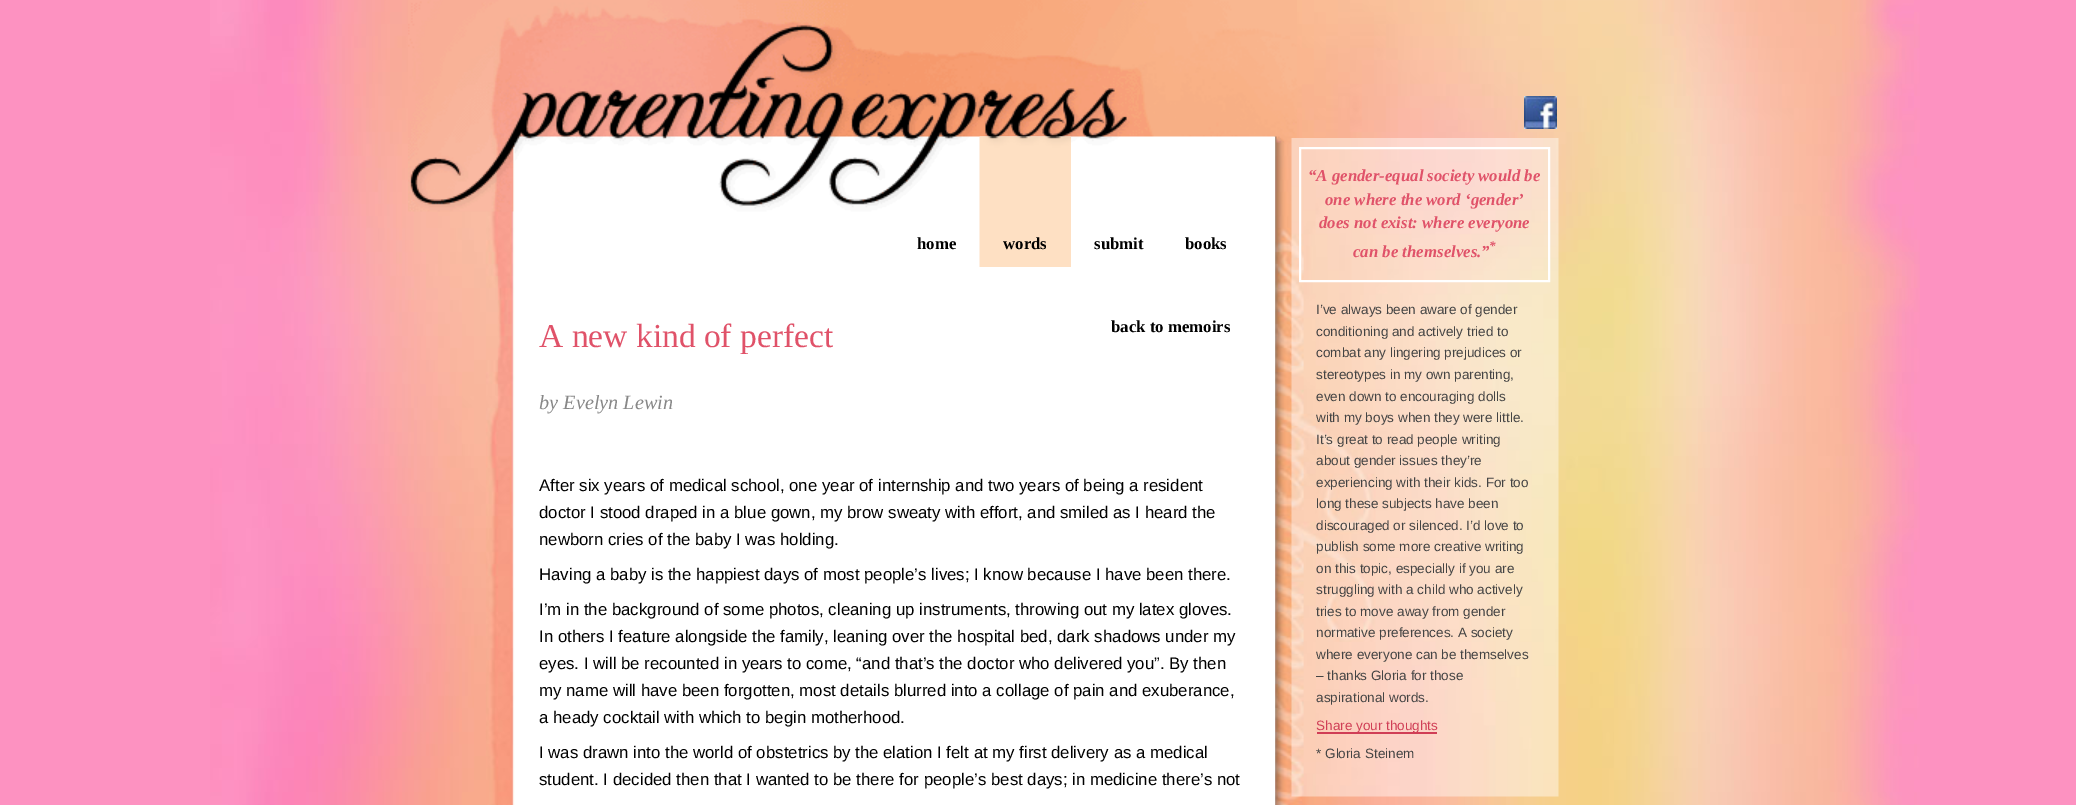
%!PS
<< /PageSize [2076 805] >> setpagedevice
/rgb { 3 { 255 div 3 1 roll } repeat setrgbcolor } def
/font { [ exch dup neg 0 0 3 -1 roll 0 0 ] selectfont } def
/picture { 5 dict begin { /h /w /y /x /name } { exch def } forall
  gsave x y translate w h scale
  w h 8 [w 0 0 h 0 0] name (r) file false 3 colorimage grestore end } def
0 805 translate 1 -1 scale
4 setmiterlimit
253 146 193 rgb
0 0 2076 805 rectfill
(img/1.rgb) 210 0 1710 805 picture
255 255 255 rgb
515 137 760 668 rectfill
(img/2.rgb) 408 0 889 212 picture
(img/3.rgb) 1524 96 33 33 picture
(img/4.rgb) 979 136 92 131 picture
(img/5.rgb) 1291 138 268 659 picture
2 setlinewidth
1300 148 249 133 rectstroke
208 62 86 rgb
1317 732 120 2 rectfill
/LiberationSerif-Bold 16.8 font
0 0 0 rgb
[
  [(home) 917 249]
  [(words) 1003 249]
  [(submit) 1094 249]
  [(books) 1185 249]
] { aload pop moveto show } forall
/LiberationSerif-BoldItalic 16.8 font
224 82 105 rgb
[
  [(“A gender-equal society would be) 1308 181]
  [(one where the word ‘gender’) 1325 205]
  [(does not exist: where everyone) 1319 228]
] { aload pop moveto show } forall
/LiberationSerif-BoldItalic 13 font
1489 250 moveto (*) show
/LiberationSerif-BoldItalic 16.8 font
1353 257 moveto (can be themselves.”) show
/LiberationSans-Regular 13.5 font
68 68 68 rgb
[
  [(I’ve always been aware of gender) 1316 314]
  [(conditioning and actively tried to) 1316 336]
  [(combat any lingering prejudices or) 1316 357]
  [(stereotypes in my own parenting,) 1316 379]
  [(even down to encouraging dolls) 1316 401]
  [(with my boys when they were little.) 1316 422]
  [(It’s great to read people writing) 1316 444]
  [(about gender issues they’re) 1316 465]
  [(experiencing with their kids. For too) 1316 487]
  [(long these subjects have been) 1316 508]
  [(discouraged or silenced. I’d love to) 1316 530]
  [(publish some more creative writing) 1316 551]
  [(on this topic, especially if you are) 1316 573]
  [(struggling with a child who actively) 1316 594]
  [(tries to move away from gender) 1316 616]
  [(normative preferences. A society) 1316 637]
  [(where everyone can be themselves) 1316 659]
  [(– thanks Gloria for those) 1316 680]
  [(aspirational words.) 1316 702]
] { aload pop moveto show } forall
208 62 86 rgb
1316 730 moveto (Share your thoughts) show
68 68 68 rgb
1316 758 moveto (* Gloria Steinem) show
/LiberationSerif-Regular 33.5 font
224 82 105 rgb
539 347 moveto (A new kind of perfect) show
/LiberationSerif-Bold 16.8 font
0 0 0 rgb
1111 332 moveto (back to memoirs) show
/LiberationSerif-Italic 20.25 font
136 136 136 rgb
539 409 moveto (by Evelyn Lewin) show
/LiberationSans-Regular 16.8 font
0 0 0 rgb
[
  [(After six years of medical school, one year of) 539 491]
  [(internship and two years of being a resident) 878 491]
  [(doctor I stood draped in a blue gown, my brow sweaty with effort, and smiled as I heard the) 539 518]
  [(newborn cries of the baby I was holding.) 539 545]
  [(Having a baby is the happiest days of most) 539 580]
  [(people’s lives; I know because I have been there.) 864 580]
  [(I’m in the background of some photos, cleaning) 539 615]
  [(up instruments, throwing out my latex gloves.) 896 615]
  [(In others I feature alongside the family, leaning over the hospital bed, dark shadows under my) 539 642]
  [(eyes. I will be recounted in years to come, “and that’s the doctor who delivered you”. By then) 539 669]
  [(my name will have been forgotten, most details blurred into a collage of pain and exuberance,) 539 696]
  [(a heady cocktail with which to begin motherhood.) 539 723]
  [(I was drawn into the world of obstetrics by the) 539 758]
  [(elation I felt at my first delivery as a medical) 883 758]
  [(student. I decided then that I wanted to be there for people’s best days; in medicine there’s not) 539 785]
] { aload pop moveto show } forall
showpage
